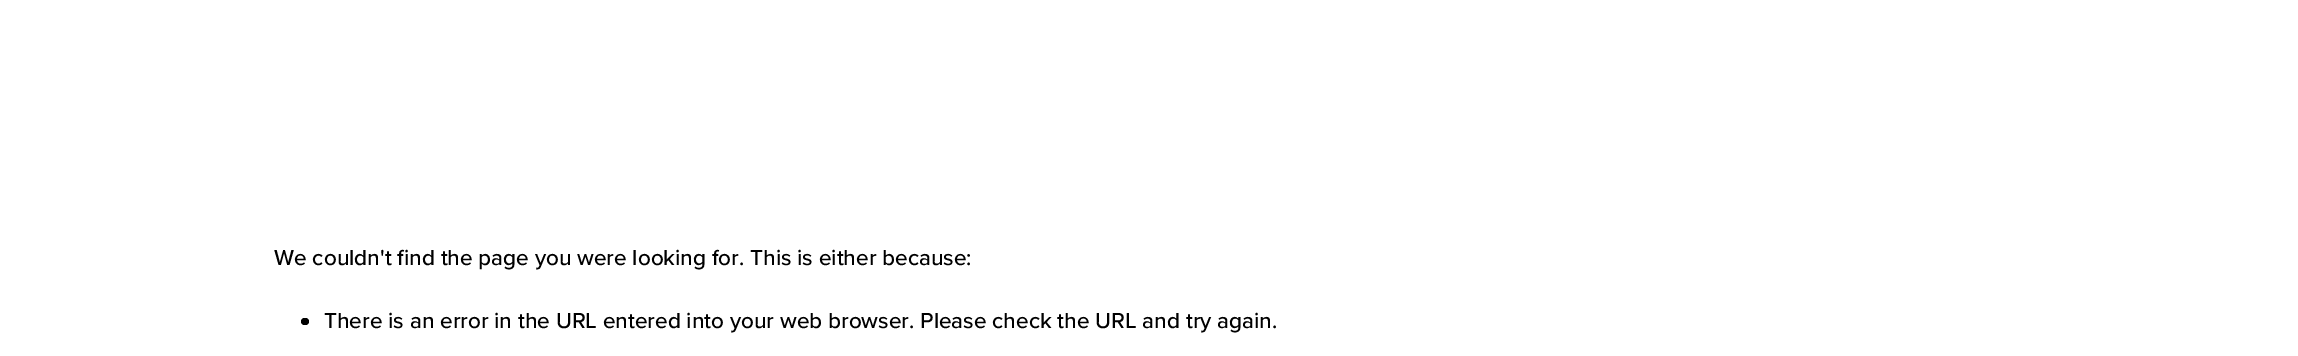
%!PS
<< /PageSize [2298 356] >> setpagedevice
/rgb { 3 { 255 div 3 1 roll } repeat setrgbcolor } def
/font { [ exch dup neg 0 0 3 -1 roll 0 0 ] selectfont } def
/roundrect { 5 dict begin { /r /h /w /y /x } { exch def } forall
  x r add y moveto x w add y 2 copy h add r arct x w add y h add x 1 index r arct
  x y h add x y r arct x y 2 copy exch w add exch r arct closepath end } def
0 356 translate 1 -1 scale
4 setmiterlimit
255 255 255 rgb
0 0 2298 356 rectfill
0 0 0 rgb
301 318 8 7 3.5 roundrect fill
/ProximaNova-Medium 22.5 font
274 265 moveto (We couldn't find the page you were looking for. This is either because:) show
324 328 moveto (There is an error in the URL entered into your web browser. Please check the URL and try again.) show
showpage
